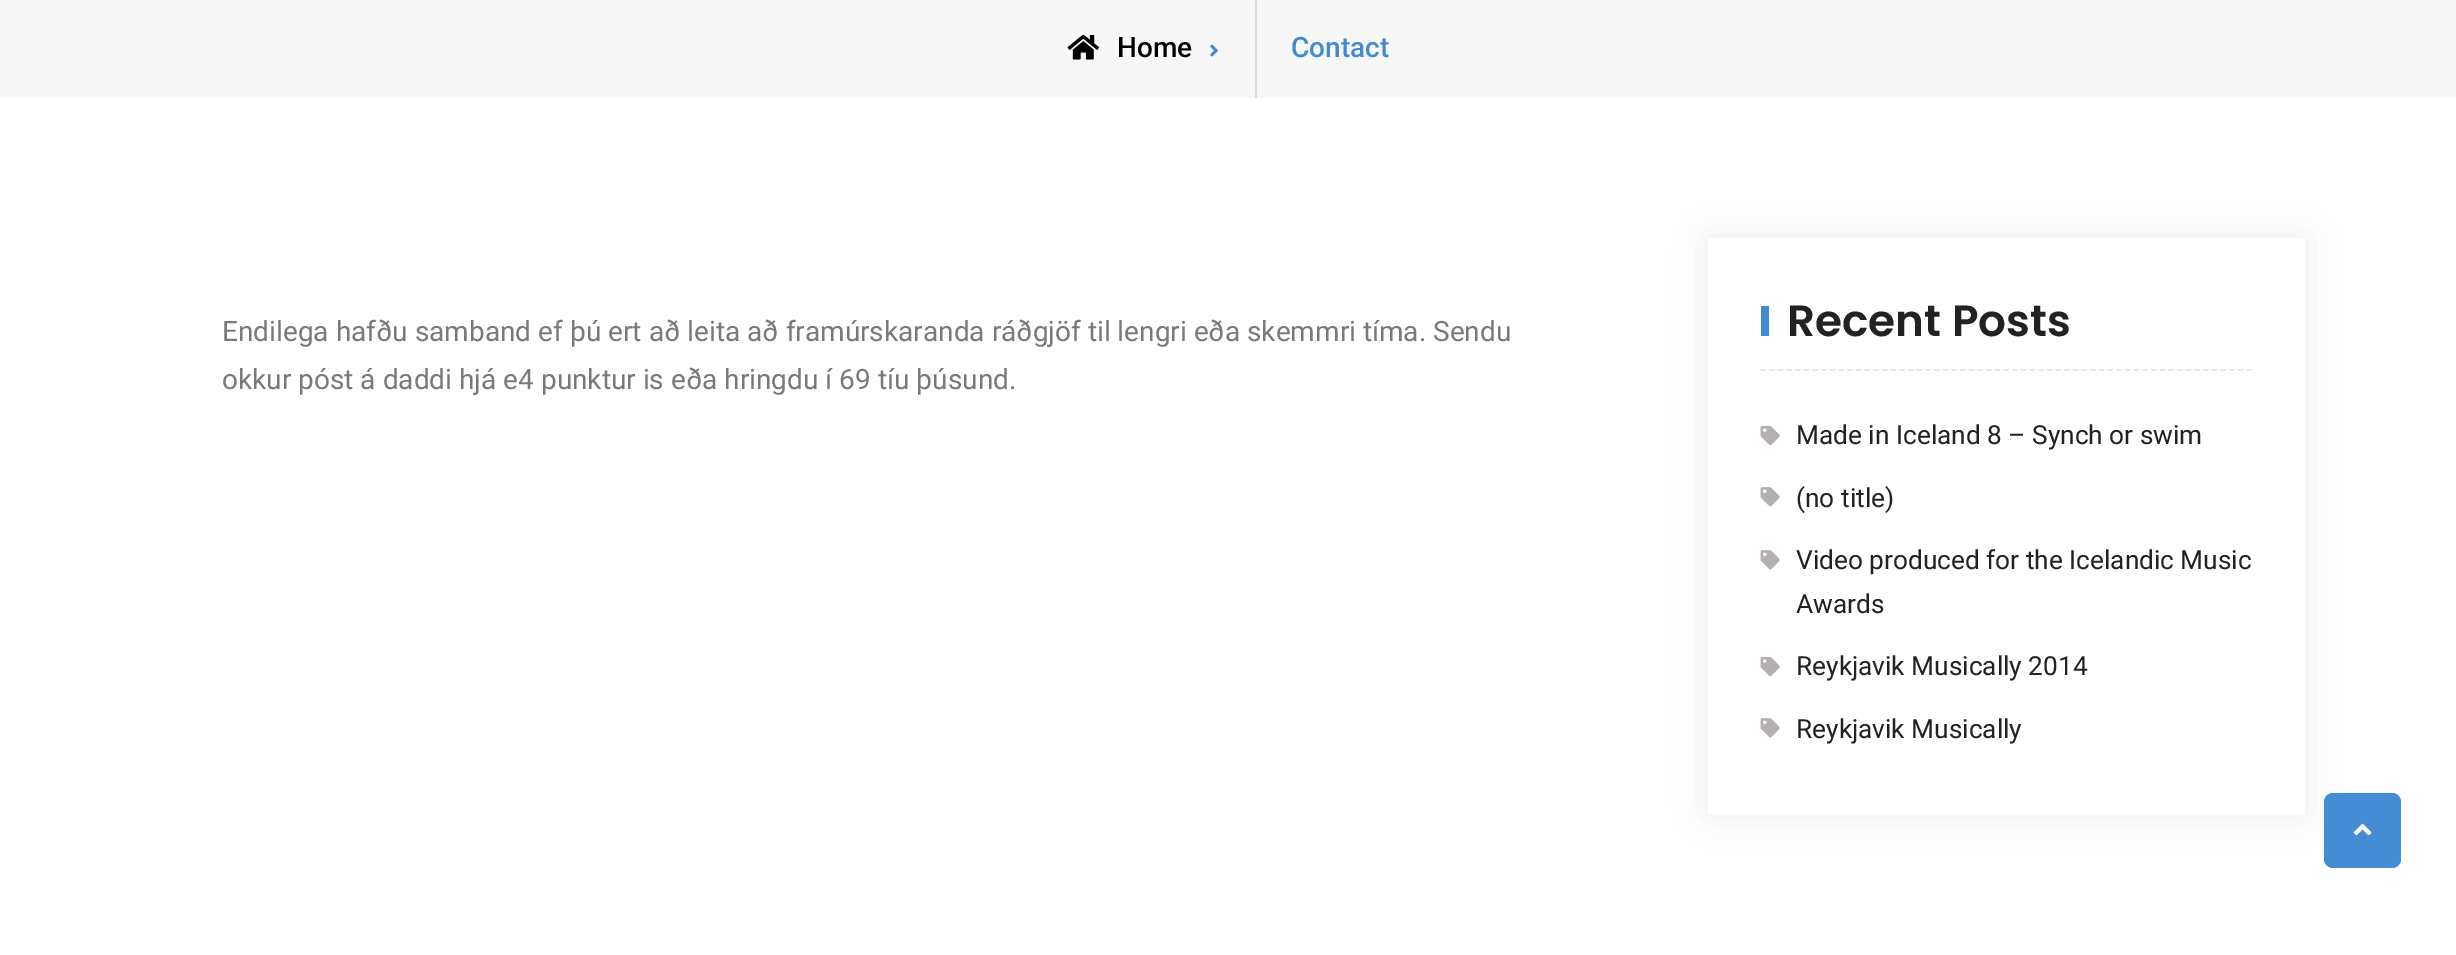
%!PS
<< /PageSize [2456 955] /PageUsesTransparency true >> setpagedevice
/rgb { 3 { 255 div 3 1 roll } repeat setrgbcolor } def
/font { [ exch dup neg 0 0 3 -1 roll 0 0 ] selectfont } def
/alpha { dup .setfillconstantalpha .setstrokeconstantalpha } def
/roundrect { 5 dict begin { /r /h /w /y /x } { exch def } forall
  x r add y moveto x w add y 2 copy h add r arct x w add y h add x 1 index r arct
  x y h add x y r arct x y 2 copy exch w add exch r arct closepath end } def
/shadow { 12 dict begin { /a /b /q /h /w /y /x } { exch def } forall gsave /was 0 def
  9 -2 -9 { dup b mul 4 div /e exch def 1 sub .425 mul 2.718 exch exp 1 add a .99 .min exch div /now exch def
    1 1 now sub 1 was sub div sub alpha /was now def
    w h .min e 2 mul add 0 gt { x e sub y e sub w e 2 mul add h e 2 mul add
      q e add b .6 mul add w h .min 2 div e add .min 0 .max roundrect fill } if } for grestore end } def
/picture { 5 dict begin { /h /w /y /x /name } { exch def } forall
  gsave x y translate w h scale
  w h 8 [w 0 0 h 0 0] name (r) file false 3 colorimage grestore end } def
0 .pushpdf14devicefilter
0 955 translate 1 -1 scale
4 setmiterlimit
255 255 255 rgb
0 0 2456 955 rectfill
247 247 247 rgb
0 0 2456 98 rectfill
221 221 221 rgb
1255 0 2 98 rectfill
(img/1.rgb) 1067 35 32 25 picture
(img/2.rgb) 1210 44 8 13 picture
31 29 29 rgb
1708 238 597 576 0 17.5 0.07 shadow
255 255 255 rgb
1708 238 597 576 rectfill
233 233 233 rgb
1.8 setlinewidth
[5.25 3.43] 0 setdash
1760.5 370 moveto 2252 370 lineto stroke
64 138 210 rgb
1761 306 8 30 rectfill
(img/3.rgb) 1760 425 20 21 picture
(img/4.rgb) 1760 487 20 20 picture
(img/4.rgb) 1760 550 20 20 picture
(img/3.rgb) 1760 656 20 21 picture
(img/4.rgb) 1760 718 20 20 picture
68 140 211 rgb
2324 793 77 75 9 roundrect fill
(img/5.rgb) 2353 823 19 13 picture
/Roboto-Medium 28 font
0 0 0 rgb
1117 57 moveto (Home) show
64 138 210 rgb
1291 57 moveto (Contact) show
/Roboto-Regular 28 font
121 121 120 rgb
222 341 moveto (Endilega hafðu samband ef þú ert að leita að framúrskaranda ráðgjöf til lengri eða skemmri tíma. Sendu) show
222 389 moveto (okkur póst á daddi hjá e4 punktur is eða hringdu í 69 tíu þúsund.) show
/Poppins-SemiBold 43.75 font
34 34 34 rgb
1787 336 moveto (Recent Posts) show
/Roboto-Regular 26.25 font
[
  [(Made in Iceland 8 – Synch or swim) 1796 444]
  [(\(no title\)) 1796 507]
  [(Video produced for the Icelandic Music) 1796 569]
  [(Awards) 1796 613]
  [(Reykjavik Musically 2014) 1796 675]
  [(Reykjavik Musically) 1796 738]
] { aload pop moveto show } forall
.poppdf14devicefilter showpage
